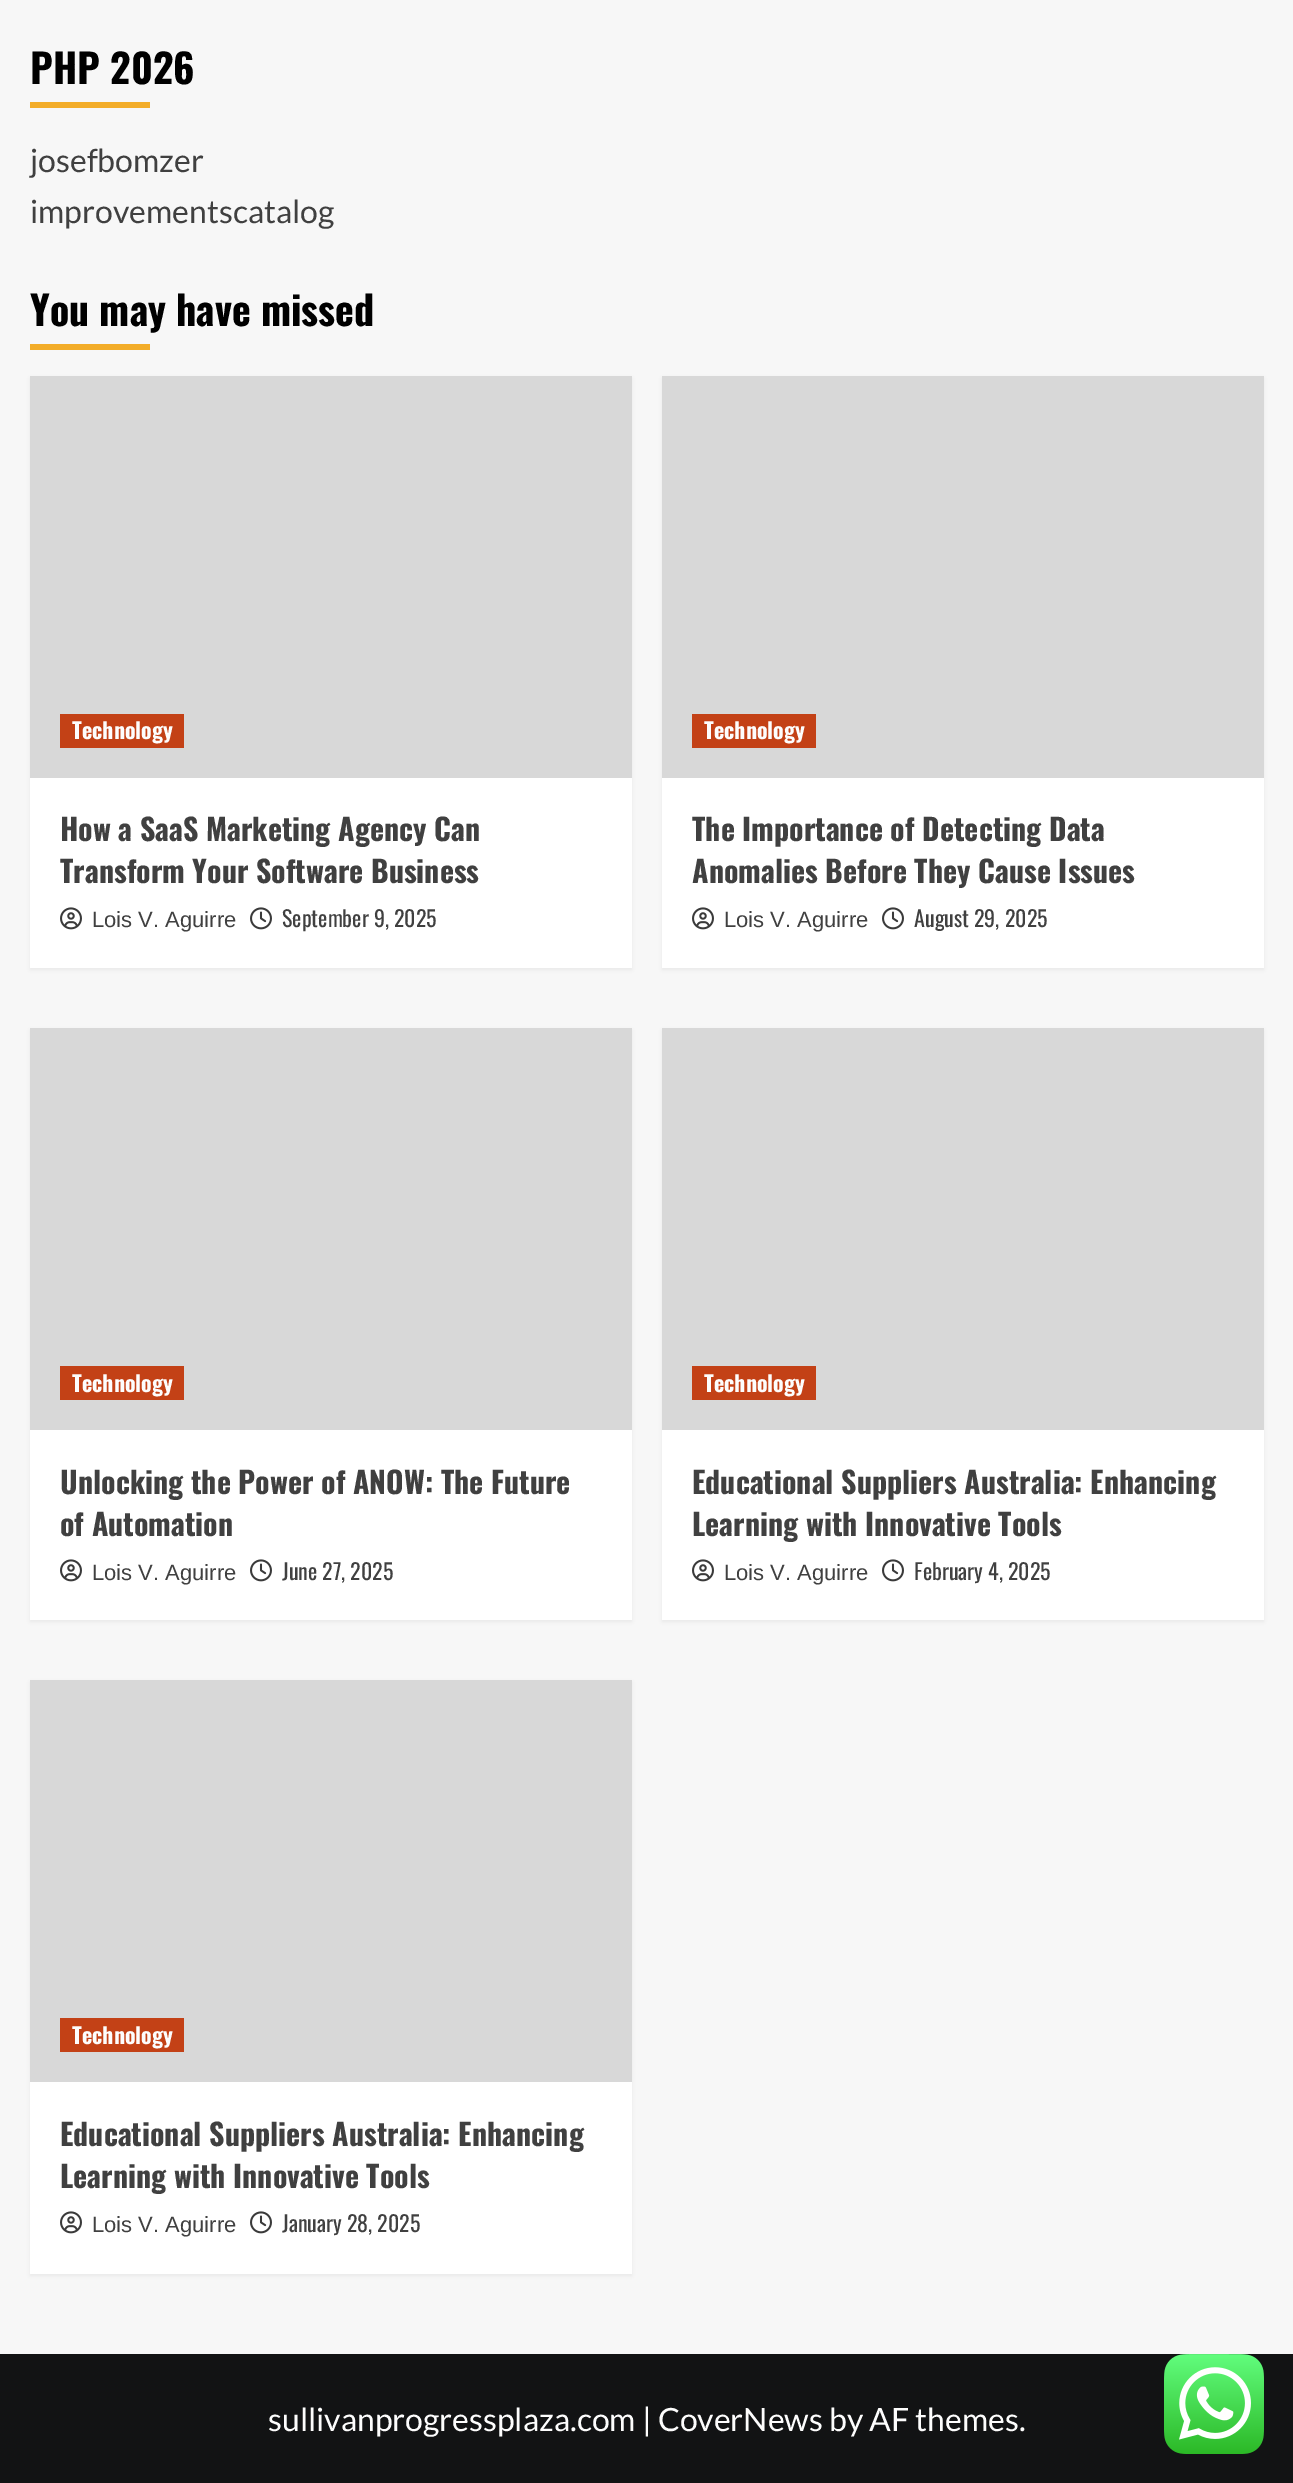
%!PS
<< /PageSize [1293 2483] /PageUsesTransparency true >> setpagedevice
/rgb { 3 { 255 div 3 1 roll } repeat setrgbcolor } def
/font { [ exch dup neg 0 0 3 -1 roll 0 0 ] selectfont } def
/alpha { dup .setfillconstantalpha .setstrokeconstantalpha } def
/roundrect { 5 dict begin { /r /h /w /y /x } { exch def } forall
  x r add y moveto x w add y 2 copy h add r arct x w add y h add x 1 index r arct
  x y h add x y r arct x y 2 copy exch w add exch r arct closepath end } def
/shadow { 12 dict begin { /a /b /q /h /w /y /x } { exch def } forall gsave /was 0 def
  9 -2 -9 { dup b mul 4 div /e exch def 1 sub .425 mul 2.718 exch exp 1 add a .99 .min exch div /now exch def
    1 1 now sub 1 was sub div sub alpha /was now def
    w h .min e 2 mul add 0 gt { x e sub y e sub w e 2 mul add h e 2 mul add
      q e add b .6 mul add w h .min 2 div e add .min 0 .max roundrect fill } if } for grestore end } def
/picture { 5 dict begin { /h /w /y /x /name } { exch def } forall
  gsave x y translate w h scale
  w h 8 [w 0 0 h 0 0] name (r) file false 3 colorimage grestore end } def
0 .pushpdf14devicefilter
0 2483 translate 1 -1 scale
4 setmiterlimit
247 247 247 rgb
0 0 1293 2483 rectfill
243 173 41 rgb
30 102 120 6 rectfill
30 344 120 6 rectfill
0 0 0 rgb
30 378 602 592 0 2 0.05 shadow
[
  [30 778 602 190 255 255 255]
  [30 376 602 402 216 216 216]
  [60 714 124 34 195 65 22]
] { aload pop rgb rectfill } forall
(img/1.rgb) 60 907 22 23 picture
(img/2.rgb) 250 907 22 23 picture
0 0 0 rgb
662 378 602 592 0 2 0.05 shadow
[
  [662 778 602 190 255 255 255]
  [662 376 602 402 216 216 216]
  [692 714 124 34 195 65 22]
] { aload pop rgb rectfill } forall
(img/1.rgb) 692 907 22 23 picture
(img/2.rgb) 882 907 22 23 picture
0 0 0 rgb
30 1030 602 592 0 2 0.05 shadow
[
  [30 1430 602 190 255 255 255]
  [30 1028 602 402 216 216 216]
  [60 1366 124 34 195 65 22]
] { aload pop rgb rectfill } forall
(img/1.rgb) 60 1559 22 23 picture
(img/2.rgb) 250 1559 22 23 picture
0 0 0 rgb
662 1030 602 592 0 2 0.05 shadow
[
  [662 1430 602 190 255 255 255]
  [662 1028 602 402 216 216 216]
  [692 1366 124 34 195 65 22]
] { aload pop rgb rectfill } forall
(img/1.rgb) 692 1559 22 23 picture
(img/2.rgb) 882 1559 22 23 picture
0 0 0 rgb
30 1682 602 594 0 2 0.05 shadow
[
  [30 2082 602 192 255 255 255]
  [30 1680 602 402 216 216 216]
  [60 2018 124 34 195 65 22]
] { aload pop rgb rectfill } forall
(img/1.rgb) 60 2211 22 23 picture
(img/2.rgb) 250 2211 22 23 picture
18 19 20 rgb
0 2354 1293 129 rectfill
(img/3.rgb) 1164 2354 100 100 picture
/Oswald-Bold 40 font
0 0 0 rgb
30 84 moveto (PHP 2026) show
/Lato-Regular 32 font
64 64 64 rgb
30 172 moveto (josefbomzer) show
30 223 moveto (improvementscatalog) show
/Oswald-Bold 40 font
0 0 0 rgb
30 326 moveto (You may have missed) show
/Oswald-Bold 22 font
253 253 253 rgb
72 739 moveto (Technology) show
/Oswald-Bold 30 font
64 64 64 rgb
60 841 moveto (How a SaaS Marketing Agency Can) show
60 883 moveto (Transform Your Software Business) show
/LiberationSans-Regular 22 font
92 927 moveto (Lois V. Aguirre) show
/Oswald-Regular 22 font
282 927 moveto (September 9, 2025) show
/Oswald-Bold 22 font
253 253 253 rgb
704 739 moveto (Technology) show
/Oswald-Bold 30 font
64 64 64 rgb
692 841 moveto (The Importance of Detecting Data) show
692 883 moveto (Anomalies Before They Cause Issues) show
/LiberationSans-Regular 22 font
724 927 moveto (Lois V. Aguirre) show
/Oswald-Regular 22 font
914 927 moveto (August 29, 2025) show
/Oswald-Bold 22 font
253 253 253 rgb
72 1392 moveto (Technology) show
/Oswald-Bold 30 font
64 64 64 rgb
60 1494 moveto (Unlocking the Power of ANOW: The Future) show
60 1536 moveto (of Automation) show
/LiberationSans-Regular 22 font
92 1580 moveto (Lois V. Aguirre) show
/Oswald-Regular 22 font
282 1580 moveto (June 27, 2025) show
/Oswald-Bold 22 font
253 253 253 rgb
704 1392 moveto (Technology) show
/Oswald-Bold 30 font
64 64 64 rgb
692 1494 moveto (Educational Suppliers Australia: Enhancing) show
692 1536 moveto (Learning with Innovative Tools) show
/LiberationSans-Regular 22 font
724 1580 moveto (Lois V. Aguirre) show
/Oswald-Regular 22 font
914 1580 moveto (February 4, 2025) show
/Oswald-Bold 22 font
253 253 253 rgb
72 2044 moveto (Technology) show
/Oswald-Bold 30 font
64 64 64 rgb
60 2146 moveto (Educational Suppliers Australia: Enhancing) show
60 2188 moveto (Learning with Innovative Tools) show
/LiberationSans-Regular 22 font
92 2232 moveto (Lois V. Aguirre) show
/Oswald-Regular 22 font
282 2232 moveto (January 28, 2025) show
/Lato-Regular 32 font
253 253 253 rgb
268 2431 moveto (sullivanprogressplaza.com | CoverNews by AF themes.) show
.poppdf14devicefilter showpage
